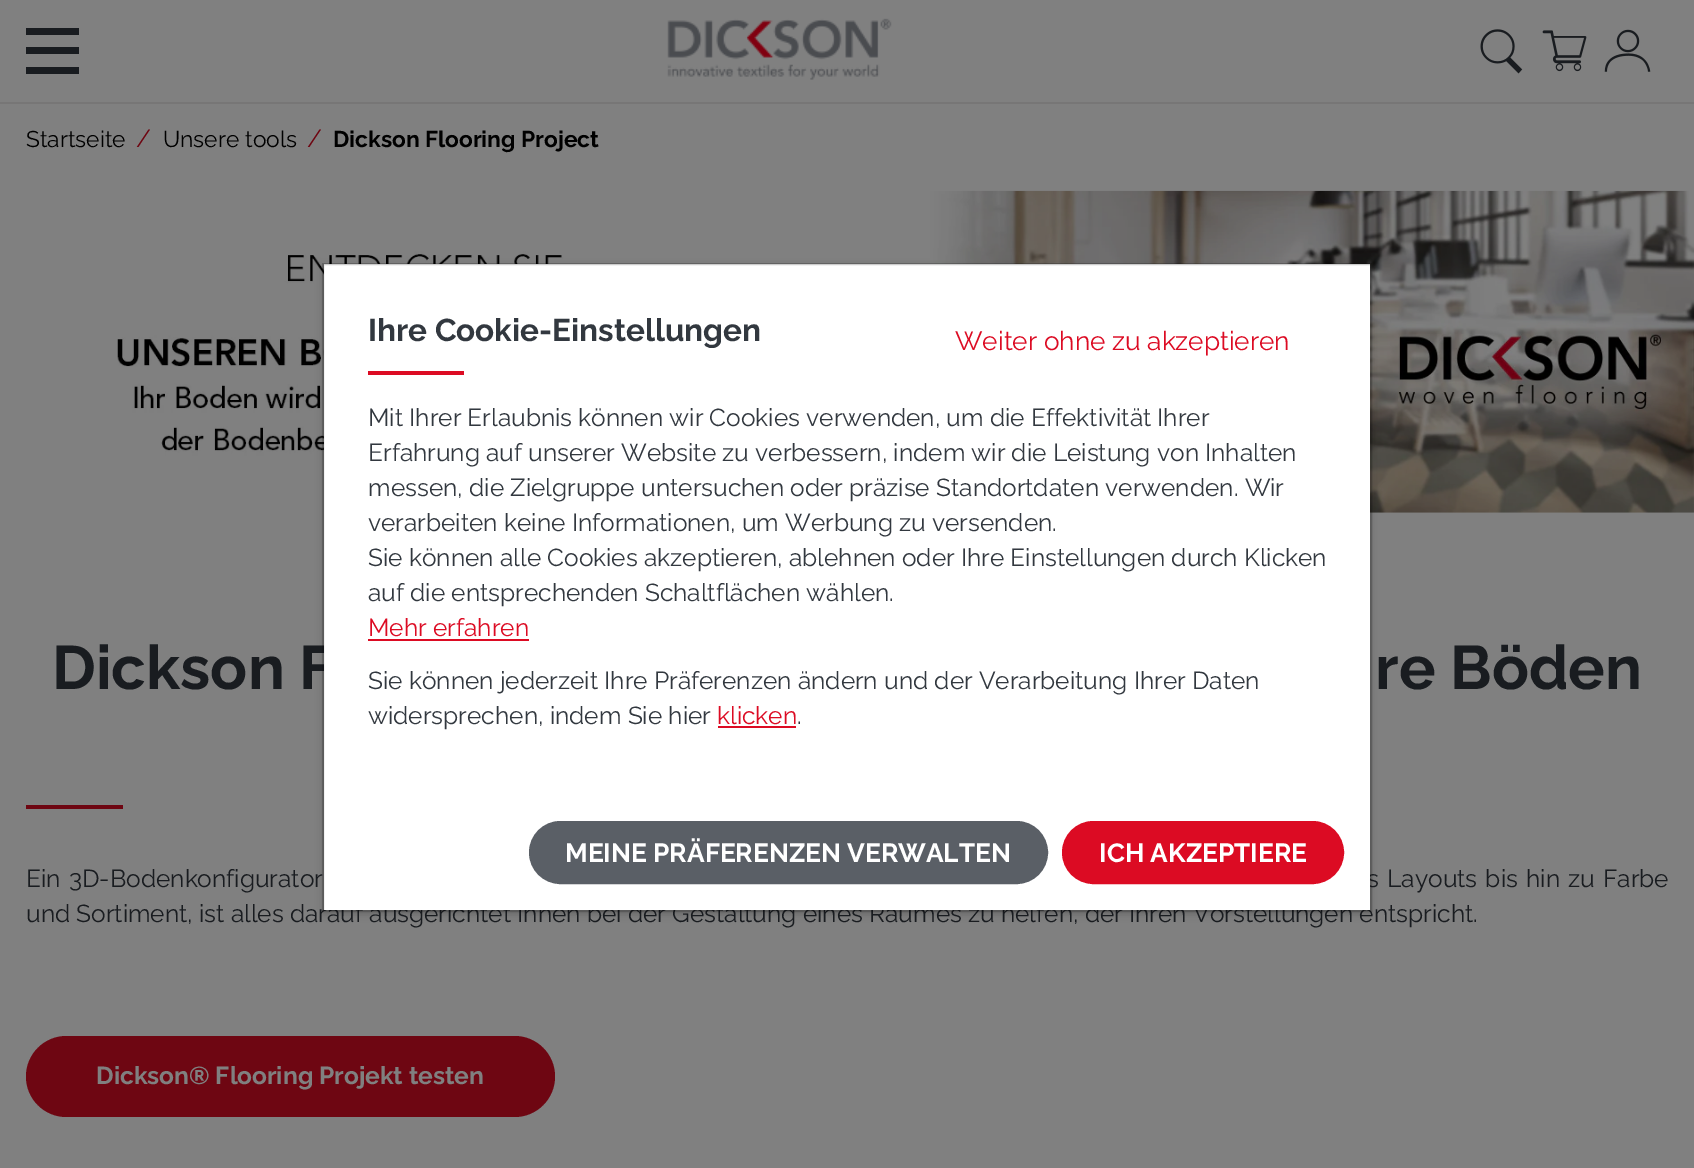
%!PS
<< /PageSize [1694 1168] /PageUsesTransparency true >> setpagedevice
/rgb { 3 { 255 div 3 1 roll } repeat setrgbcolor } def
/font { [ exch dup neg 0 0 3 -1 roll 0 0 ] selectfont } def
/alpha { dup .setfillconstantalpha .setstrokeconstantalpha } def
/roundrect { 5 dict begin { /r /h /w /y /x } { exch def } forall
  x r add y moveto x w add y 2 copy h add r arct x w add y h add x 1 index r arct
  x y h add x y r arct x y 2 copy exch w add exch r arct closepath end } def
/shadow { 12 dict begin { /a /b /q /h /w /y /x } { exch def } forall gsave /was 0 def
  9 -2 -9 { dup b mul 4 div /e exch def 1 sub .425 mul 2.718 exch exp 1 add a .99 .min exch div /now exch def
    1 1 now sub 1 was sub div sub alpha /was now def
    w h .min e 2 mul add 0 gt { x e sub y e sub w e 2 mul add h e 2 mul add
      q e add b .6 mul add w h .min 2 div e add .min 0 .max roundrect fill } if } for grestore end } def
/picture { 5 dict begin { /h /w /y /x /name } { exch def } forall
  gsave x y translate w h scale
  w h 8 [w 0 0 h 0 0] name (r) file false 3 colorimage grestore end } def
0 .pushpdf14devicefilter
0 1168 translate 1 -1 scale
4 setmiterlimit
128 128 128 rgb
0 0 1694 1168 rectfill
[
  [26 28 53 7 25 28 32]
  [26 47 53 7 25 28 32]
  [26 67 53 7 25 28 32]
] { aload pop rgb rectfill } forall
(img/1.rgb) 667 18 225 62 picture
(img/2.rgb) 1480 29 43 45 picture
(img/3.rgb) 1542 30 45 42 picture
(img/4.rgb) 1604 29 47 43 picture
119 118 118 rgb
0 102 1694 2 rectfill
(img/5.rgb) 117 190 1577 323 picture
110 6 18 rgb
26 805 97 4 rectfill
26 1036 529 81 40.5 roundrect fill
0 0 0 rgb
322 266 1050 649 0 3.5 0.15 shadow
/Raleway-Regular 22.75 font
26 147 moveto (Startseite) show
/Raleway-Regular 24.5 font
110 6 18 rgb
136 147 moveto (/) show
/Raleway-Regular 22.75 font
0 0 0 rgb
163 147 moveto (Unsere tools) show
/Raleway-Regular 24.5 font
110 6 18 rgb
307 147 moveto (/) show
/Raleway-Bold 22.75 font
0 0 0 rgb
333 147 moveto (Dickson Flooring Project) show
/Raleway-Bold 61.25 font
25 28 32 rgb
52 689 moveto (Dickson F) show
1375 689 moveto (re Böden) show
/Raleway-Regular 24.5 font
26 887 moveto 2 0 32 (Ein 3D-Bodenkonfigurator) widthshow
1367 887 moveto 2 0 32 (s Layouts bis hin zu Farbe) widthshow
26 922 moveto (und Sortiment, ist alles darauf ausgerichtet Ihnen bei der Gestaltung eines Raumes zu helfen, der Ihren Vorstellungen entspricht.) show
/Raleway-Bold 24.5 font
128 128 128 rgb
96 1084 moveto (Dickson® Flooring Projekt testen) show
255 255 255 rgb
324 264 1046 646 rectfill
0.2 alpha
0 0 0 rgb
2 setlinewidth
323 264 1048 647 rectstroke
/Raleway-Bold 31.5 font
1 alpha
50 56 63 rgb
368 341 moveto (Ihre Cookie-Einstellungen) show
220 11 35 rgb
368 371 96 4 rectfill
/Raleway-Regular 26.25 font
955 350 moveto (Weiter ohne zu akzeptieren) show
/Raleway-Regular 24.5 font
50 56 63 rgb
[
  [(Mit Ihrer Erlaubnis können wir Cookies verwenden, um die Effektivität Ihrer) 368 426]
  [(Erfahrung auf unserer Website zu verbessern, indem wir die Leistung von Inhalten) 368 461]
  [(messen, die Zielgruppe untersuchen oder präzise Standortdaten verwenden. Wir) 368 496]
  [(verarbeiten keine Informationen, um Werbung zu versenden.) 368 531]
  [(Sie können alle Cookies akzeptieren, ablehnen oder Ihre Einstellungen durch Klicken) 368 566]
  [(auf die entsprechenden Schaltflächen wählen.) 368 601]
] { aload pop moveto show } forall
220 11 35 rgb
368 636 moveto (Mehr erfahren) show
368 639 161 2 rectfill
50 56 63 rgb
368 689 moveto (Sie können jederzeit Ihre Präferenzen ändern und der Verarbeitung Ihrer Daten) show
368 724 moveto (widersprechen, indem Sie hier) show
220 11 35 rgb
717 724 moveto (klicken) show
718 726 78 2 rectfill
50 56 63 rgb
797 724 moveto (.) show
90 95 102 rgb
530 822 517 61 30.5 roundrect gsave fill grestore
stroke
/Raleway-Bold 26.25 font
255 255 255 rgb
565 862 moveto (MEINE PRÄFERENZEN VERWALTEN) show
220 11 35 rgb
1063 822 280 61 30.5 roundrect gsave fill grestore
stroke
255 255 255 rgb
1099 862 moveto (ICH AKZEPTIERE) show
.poppdf14devicefilter showpage
